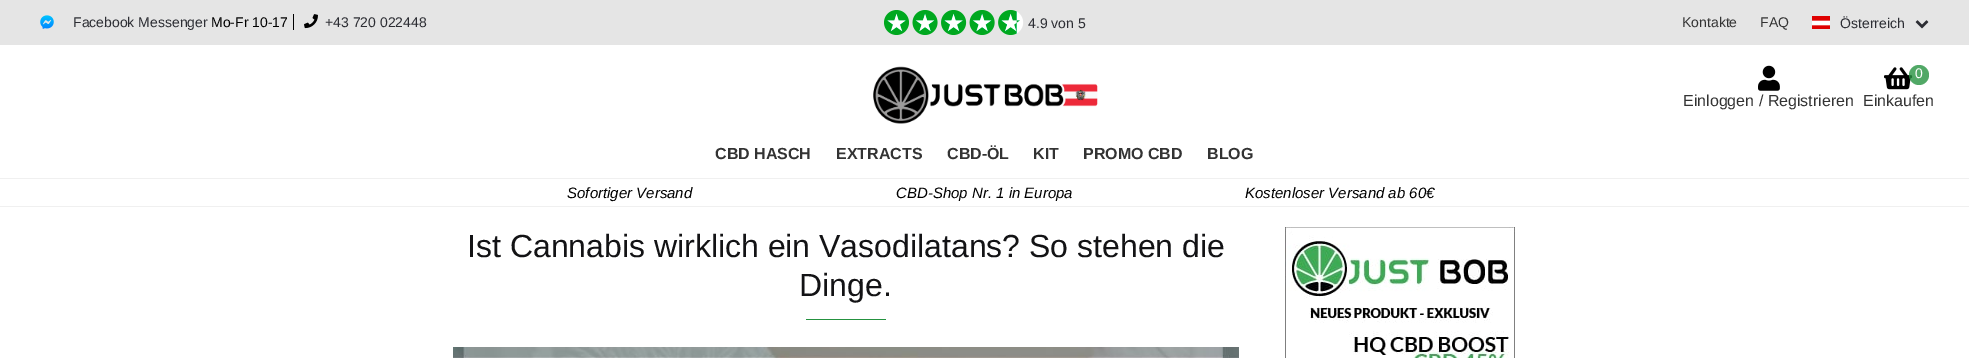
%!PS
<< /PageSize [1969 358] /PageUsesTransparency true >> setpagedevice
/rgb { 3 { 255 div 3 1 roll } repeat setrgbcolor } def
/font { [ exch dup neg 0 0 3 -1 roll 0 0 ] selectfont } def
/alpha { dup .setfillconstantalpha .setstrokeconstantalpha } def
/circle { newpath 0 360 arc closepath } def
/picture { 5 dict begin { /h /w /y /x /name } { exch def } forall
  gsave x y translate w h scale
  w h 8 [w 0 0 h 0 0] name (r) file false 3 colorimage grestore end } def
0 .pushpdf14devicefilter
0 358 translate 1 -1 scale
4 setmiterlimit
255 255 255 rgb
0 0 1969 358 rectfill
240 240 240 rgb
0 178 1969 1 rectfill
229 229 229 rgb
0 0 1969 45 rectfill
(img/1.rgb) 40 15 14 14 picture
0 0 0 rgb
293 14 1 16 rectfill
(img/2.rgb) 304 14 14 15 picture
(img/3.rgb) 884 10 140 25 picture
(img/4.rgb) 1812 16 18 13 picture
(img/5.rgb) 1915 20 14 9 picture
(img/6.rgb) 873 66 225 58 picture
(img/7.rgb) 1758 65 22 26 picture
(img/8.rgb) 1884 67 29 23 picture
0.8 alpha
37 146 64 rgb
1919 75 10 circle fill
1 alpha
240 240 240 rgb
0 206 1969 1 rectfill
37 146 64 rgb
806 319 80 1 rectfill
(img/9.rgb) 453 347 786 11 picture
(img/10.rgb) 1285 227 230 131 picture
/LiberationSans-Regular 14 font
44 45 51 rgb
73 27 moveto (Facebook Messenger) show
0 0 0 rgb
211 27 moveto (Mo-Fr 10-17) show
44 45 51 rgb
325 27 moveto (+43 720 022448) show
1028 28 moveto (4.9 von 5) show
51 51 51 rgb
1682 27 moveto (Kontakte) show
1760 27 moveto (FAQ) show
44 45 51 rgb
1840 28 moveto (Österreich) show
/LiberationSans-Regular 16 font
51 51 51 rgb
1683 106 moveto (Einloggen / Registrieren) show
/LiberationSans-Regular 14 font
255 255 255 rgb
1915 78 moveto (0) show
/LiberationSans-Regular 16 font
51 51 51 rgb
1863 106 moveto (Einkaufen) show
/LiberationSans-Bold 16 font
[
  [(CBD HASCH) 715 159]
  [(EXTRACTS) 836 159]
  [(CBD-ÖL) 947 159]
  [(KIT) 1033 159]
  [(PROMO CBD) 1083 159]
  [(BLOG) 1207 159]
] { aload pop moveto show } forall
/LiberationSans-Italic 15 font
0 0 0 rgb
[
  [(Sofortiger Versand) 567 198]
  [(CBD-Shop Nr. 1 in Europa) 896 198]
  [(Kostenloser Versand ab 60€) 1245 198]
] { aload pop moveto show } forall
/LiberationSans-Regular 32 font
19 19 21 rgb
467 257 moveto (Ist Cannabis wirklich ein Vasodilatans? So stehen die) show
799 296 moveto (Dinge.) show
.poppdf14devicefilter showpage
